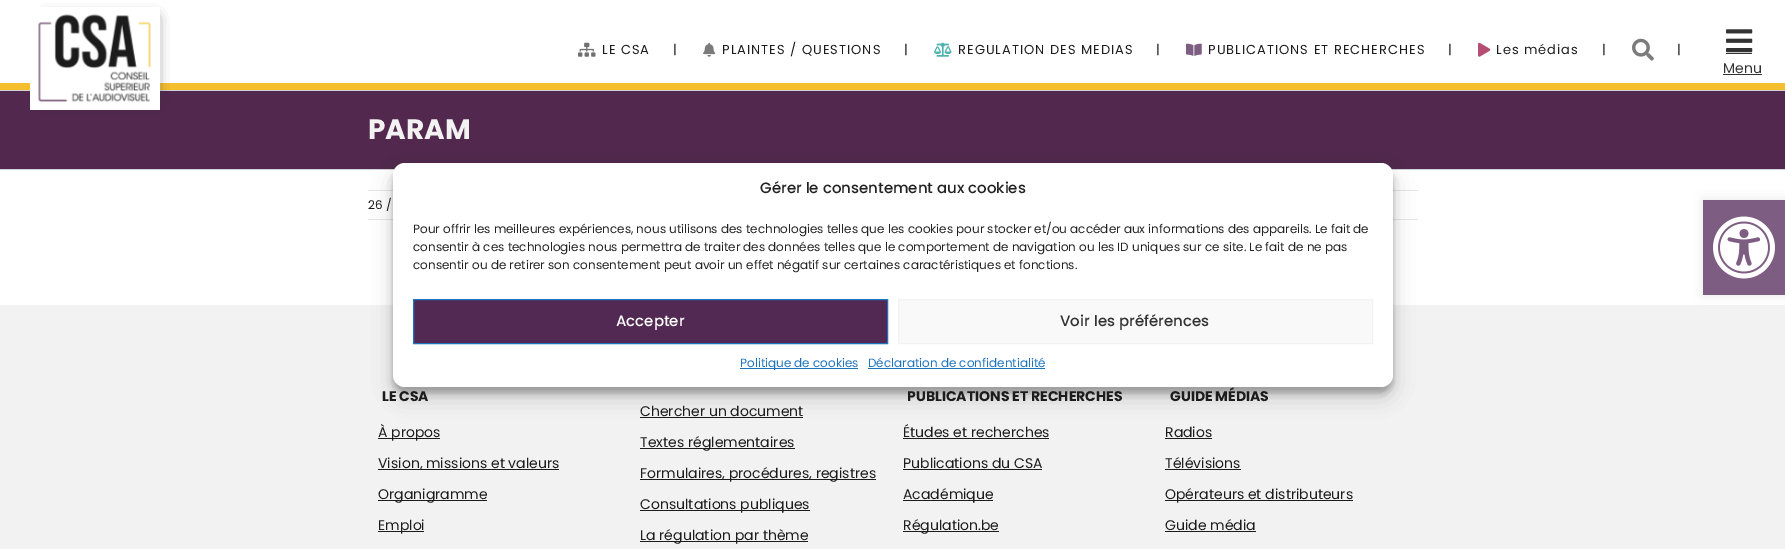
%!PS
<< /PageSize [1785 549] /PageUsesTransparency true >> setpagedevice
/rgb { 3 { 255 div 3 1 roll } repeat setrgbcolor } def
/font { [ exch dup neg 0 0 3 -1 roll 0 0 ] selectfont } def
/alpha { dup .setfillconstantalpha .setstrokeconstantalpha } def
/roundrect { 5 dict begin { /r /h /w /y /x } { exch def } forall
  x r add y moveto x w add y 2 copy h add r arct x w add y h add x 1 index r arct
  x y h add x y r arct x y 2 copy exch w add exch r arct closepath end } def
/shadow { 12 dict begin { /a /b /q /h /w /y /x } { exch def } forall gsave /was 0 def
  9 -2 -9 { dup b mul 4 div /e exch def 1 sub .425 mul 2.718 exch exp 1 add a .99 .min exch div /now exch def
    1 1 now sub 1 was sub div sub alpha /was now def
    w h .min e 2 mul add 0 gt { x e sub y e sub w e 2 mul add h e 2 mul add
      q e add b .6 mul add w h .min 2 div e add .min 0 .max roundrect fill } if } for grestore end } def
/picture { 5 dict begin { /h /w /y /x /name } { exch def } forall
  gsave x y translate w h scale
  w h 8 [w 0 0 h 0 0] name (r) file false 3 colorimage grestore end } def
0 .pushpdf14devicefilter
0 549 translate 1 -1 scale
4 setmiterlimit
255 255 255 rgb
0 0 1785 549 rectfill
[
  [0 83 1785 7 245 190 47]
  [0 91 1785 78 82 40 78]
  [0 90 1785 1 210 211 212]
] { aload pop rgb rectfill } forall
51 51 51 rgb
45 18 110 83 0 6.5 1 shadow
255 255 255 rgb
30 7 130 103 rectfill
(img/1.rgb) 38 14 113 88 picture
(img/2.rgb) 578 42 18 15 picture
(img/3.rgb) 703 42 13 15 picture
(img/4.rgb) 934 42 18 15 picture
(img/5.rgb) 1186 43 16 13 picture
(img/6.rgb) 1478 42 13 15 picture
(img/7.rgb) 1632 38 22 23 picture
(img/8.rgb) 1726 29 27 24 picture
[
  [1726 53 26 1 51 51 51]
  [1723 74 39 1 51 51 51]
  [0 169 1785 1 210 211 212]
  [368 190 1050 1 231 230 230]
  [368 219 1050 1 231 230 230]
  [0 305 1785 244 242 242 242]
  [378 438 62 1 28 28 28]
  [378 469 181 1 28 28 28]
  [378 500 109 1 28 28 28]
  [378 531 46 1 28 28 28]
  [640 417 163 1 28 28 28]
  [640 448 155 1 28 28 28]
  [640 479 236 1 28 28 28]
  [640 510 170 1 28 28 28]
  [640 541 168 1 28 28 28]
  [903 438 146 1 28 28 28]
  [903 469 139 1 28 28 28]
  [903 500 90 1 28 28 28]
  [903 531 96 1 28 28 28]
  [1165 438 47 1 28 28 28]
  [1165 469 76 1 28 28 28]
  [1165 500 188 1 28 28 28]
  [1165 531 91 1 28 28 28]
] { aload pop rgb rectfill } forall
0 0 0 rgb
393 169 1000 224 12 3 0.23 shadow
393 173 1000 224 12 10 0.19 shadow
255 255 255 rgb
393 163 1000 224 12 roundrect fill
81 41 83 rgb
413.5 299.5 moveto 887.5 299.5 lineto 887.5 343.5 lineto 413.5 343.5 lineto closepath gsave fill grestore
30 115 190 rgb
stroke
249 249 249 rgb
898.5 299.5 moveto 1372.5 299.5 lineto 1372.5 343.5 lineto 898.5 343.5 lineto closepath gsave fill grestore
242 242 242 rgb
stroke
30 115 190 rgb
740 368 118 1 rectfill
868 368 177 1 rectfill
0 0 0 rgb
1703 200 82 95 0 5 0.1 shadow
125 93 129 rgb
1703 200 82 95 rectfill
(img/9.rgb) 1713 216 62 63 picture
/Poppins-Regular 13 font
28 28 28 rgb
602 54 moveto 1 0 (LE CSA) ashow
673 54 moveto 1 0 (|) ashow
722 54 moveto 1 0 (PLAINTES / QUESTIONS) ashow
904 54 moveto 1 0 (|) ashow
958 54 moveto 1 0 (REGULATION DES MEDIAS) ashow
1156 54 moveto 1 0 (|) ashow
1208 54 moveto 1 0 (PUBLICATIONS ET RECHERCHES) ashow
1448 54 moveto 1 0 (|) ashow
1496 54 moveto 1 0 (Les médias) ashow
1602 54 moveto 1 0 (|) ashow
1677 54 moveto 1 0 (|) ashow
/Poppins-Regular 14 font
51 51 51 rgb
1723 73 moveto (Menu) show
/Poppins-Bold 28 font
242 242 242 rgb
368 139 moveto (PARAM) show
/Poppins-Regular 12 font
28 28 28 rgb
368 209 moveto (26 /) show
/Poppins-Bold 14 font
382 401 moveto (LE CSA) show
/Poppins-Regular 14 font
[
  [(À propos) 378 437]
  [(Vision, missions et valeurs) 378 468]
  [(Organigramme) 378 499]
  [(Emploi) 378 530]
  [(Chercher un document) 640 416]
  [(Textes réglementaires) 640 447]
  [(Formulaires, procédures, registres) 640 478]
  [(Consultations publiques) 640 509]
  [(La régulation par thème) 640 540]
] { aload pop moveto show } forall
/Poppins-Bold 14 font
907 401 moveto (PUBLICATIONS ET RECHERCHES) show
/Poppins-Regular 14 font
[
  [(Études et recherches) 903 437]
  [(Publications du CSA) 903 468]
  [(Académique) 903 499]
  [(Régulation.be) 903 530]
] { aload pop moveto show } forall
/Poppins-Bold 14 font
1170 401 moveto (GUIDE MÉDIAS) show
/Poppins-Regular 14 font
[
  [(Radios) 1165 437]
  [(Télévisions) 1165 468]
  [(Opérateurs et distributeurs) 1165 499]
  [(Guide média) 1165 530]
] { aload pop moveto show } forall
/Poppins-Medium 15 font
34 34 34 rgb
760 193 moveto (Gérer le consentement aux cookies) show
/Poppins-Regular 12 font
[
  [(Pour offrir les meilleures expériences, nous utilisons des technologies telles que les cookies pour stocker et/ou accéder aux informations des appareils. Le fait de) 413 233]
  [(consentir à ces technologies nous permettra de traiter des données telles que le comportement de navigation ou les ID uniques sur ce site. Le fait de ne pas) 413 251]
  [(consentir ou de retirer son consentement peut avoir un effet négatif sur certaines caractéristiques et fonctions.) 413 269]
] { aload pop moveto show } forall
/Poppins-Medium 15 font
255 255 255 rgb
616 326 moveto (Accepter) show
51 51 51 rgb
1060 326 moveto (Voir les préférences) show
/Poppins-Regular 12 font
30 115 190 rgb
740 367 moveto (Politique de cookies) show
868 367 moveto (Déclaration de confidentialité) show
.poppdf14devicefilter showpage
